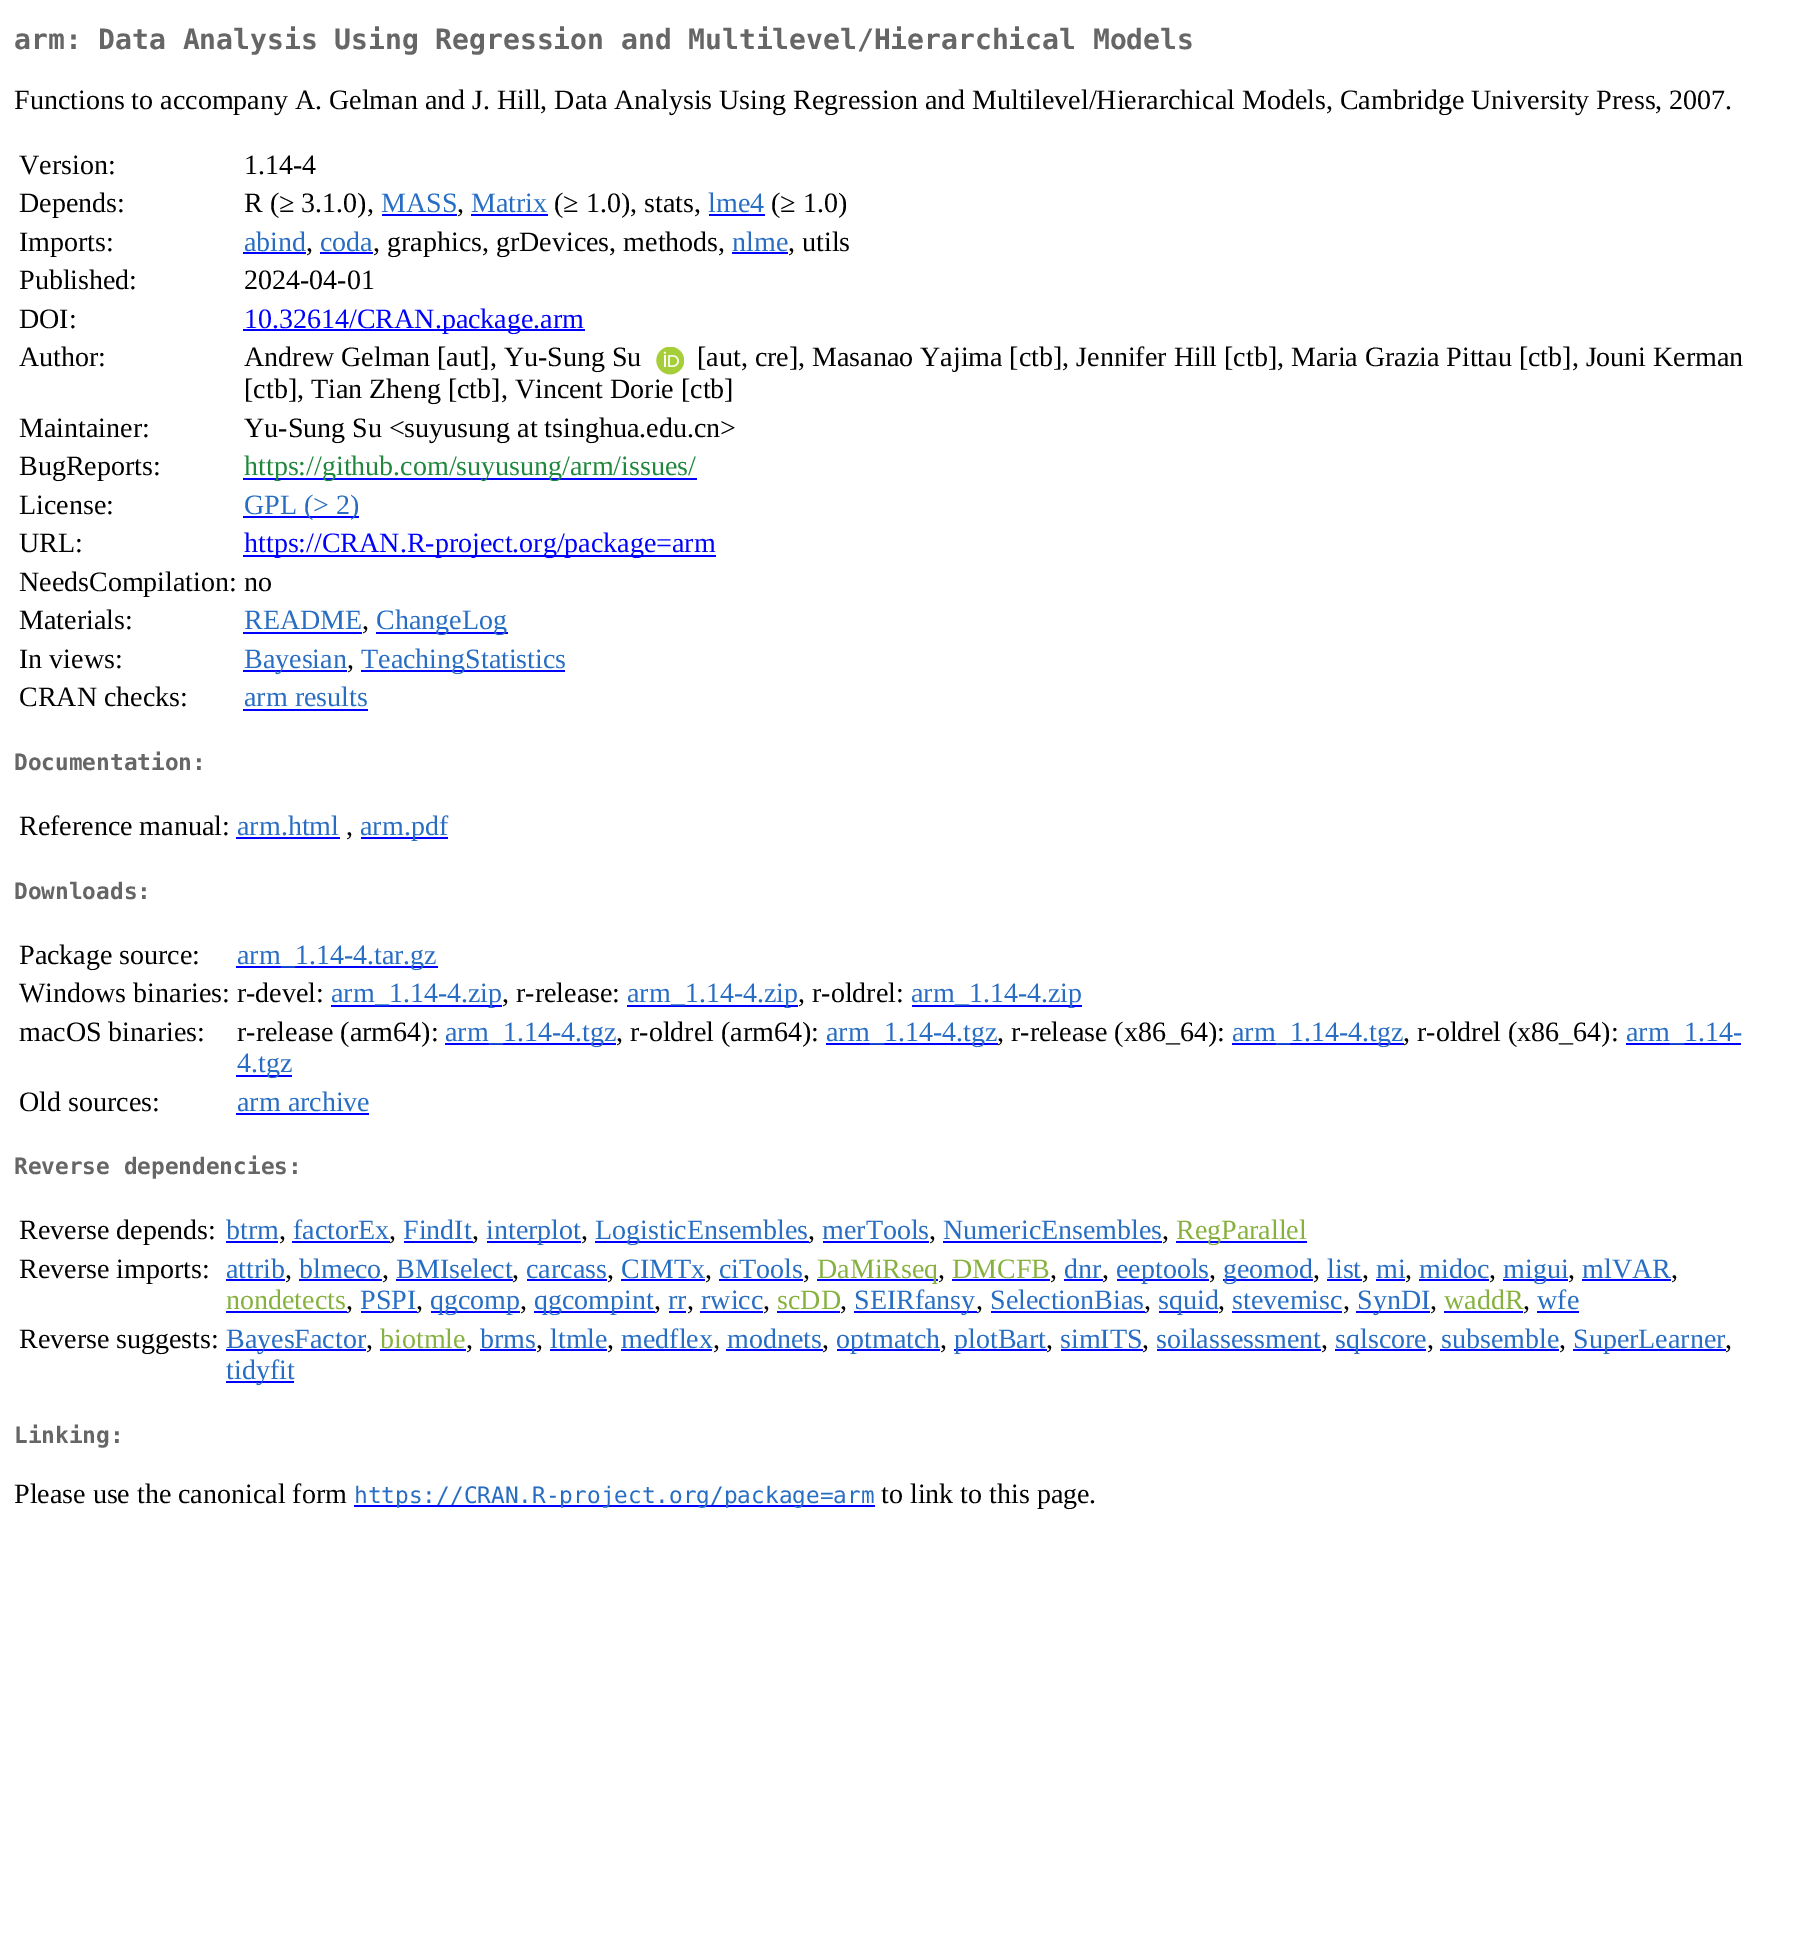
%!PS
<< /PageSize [1809 1950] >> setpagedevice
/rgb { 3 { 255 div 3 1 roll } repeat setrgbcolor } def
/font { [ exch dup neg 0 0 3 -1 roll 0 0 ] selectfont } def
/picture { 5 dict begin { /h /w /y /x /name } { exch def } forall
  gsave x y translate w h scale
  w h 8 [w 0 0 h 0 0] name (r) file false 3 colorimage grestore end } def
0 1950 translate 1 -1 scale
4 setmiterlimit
255 255 255 rgb
0 0 1809 1950 rectfill
[
  [382 214 75 2 0 0 255]
  [471 214 77 2 0 0 255]
  [709 214 56 2 0 0 255]
  [243 252 63 2 0 0 255]
  [320 252 53 2 0 0 255]
  [732 252 56 2 0 0 255]
  [243 329 342 2 0 0 255]
] { aload pop rgb rectfill } forall
(img/1.rgb) 656 347 28 28 picture
[
  [243 478 454 2 0 0 255]
  [243 516 116 2 0 0 255]
  [243 555 473 2 0 0 255]
  [243 632 119 2 0 0 255]
  [376 632 132 2 0 0 255]
  [243 670 104 2 0 0 255]
  [361 670 204 2 0 0 255]
  [243 709 125 2 0 0 255]
  [236 837 104 2 0 0 255]
  [361 837 87 2 0 0 255]
  [236 966 202 2 0 0 255]
  [331 1005 171 2 0 0 255]
  [627 1005 171 2 0 0 255]
  [912 1005 170 2 0 0 255]
  [445 1043 171 2 0 0 255]
  [826 1043 172 2 0 0 255]
  [1232 1043 172 2 0 0 255]
  [1626 1043 115 2 0 0 255]
  [236 1075 56 2 0 0 255]
  [236 1113 133 2 0 0 255]
  [226 1241 52 2 0 0 255]
  [292 1241 98 2 0 0 255]
  [404 1241 69 2 0 0 255]
  [487 1241 94 2 0 0 255]
  [595 1241 214 2 0 0 255]
  [823 1241 106 2 0 0 255]
  [943 1241 219 2 0 0 255]
  [1176 1241 131 2 0 0 255]
  [226 1279 59 2 0 0 255]
  [299 1279 83 2 0 0 255]
  [396 1279 117 2 0 0 255]
  [527 1279 80 2 0 0 255]
  [621 1279 84 2 0 0 255]
  [719 1279 84 2 0 0 255]
  [817 1279 121 2 0 0 255]
  [952 1279 98 2 0 0 255]
  [1064 1279 39 2 0 0 255]
  [1117 1279 92 2 0 0 255]
  [1223 1279 90 2 0 0 255]
  [1327 1279 35 2 0 0 255]
  [1376 1279 29 2 0 0 255]
  [1419 1279 70 2 0 0 255]
  [1503 1279 65 2 0 0 255]
  [1582 1279 89 2 0 0 255]
  [226 1311 121 2 0 0 255]
  [361 1311 56 2 0 0 255]
  [431 1311 89 2 0 0 255]
  [534 1311 121 2 0 0 255]
  [669 1311 17 2 0 0 255]
  [700 1311 63 2 0 0 255]
  [777 1311 63 2 0 0 255]
  [854 1311 123 2 0 0 255]
  [991 1311 154 2 0 0 255]
  [1159 1311 59 2 0 0 255]
  [1232 1311 110 2 0 0 255]
  [1356 1311 74 2 0 0 255]
  [1444 1311 79 2 0 0 255]
  [1537 1311 42 2 0 0 255]
  [226 1349 140 2 0 0 255]
  [380 1349 86 2 0 0 255]
  [480 1349 56 2 0 0 255]
  [550 1349 57 2 0 0 255]
  [621 1349 91 2 0 0 255]
  [726 1349 97 2 0 0 255]
  [837 1349 103 2 0 0 255]
  [954 1349 93 2 0 0 255]
  [1061 1349 82 2 0 0 255]
  [1157 1349 164 2 0 0 255]
  [1335 1349 91 2 0 0 255]
  [1440 1349 119 2 0 0 255]
  [1573 1349 153 2 0 0 255]
  [226 1381 68 2 0 0 255]
  [354 1505 521 2 0 0 255]
] { aload pop rgb rectfill } forall
/DejaVuSansMono-Bold 28 font
102 102 102 rgb
14 49 moveto (arm: Data Analysis Using Regression and Multilevel/Hierarchical Models) show
/LiberationSerif-Regular 28 font
0 0 0 rgb
[
  [(Functions to accompany A. Gelman and J. Hill, Data Analysis Using Regression and Multilevel/Hierarchical Models, Cambridge University Press, 2007.) 14 109]
  [(Version:) 19 174]
  [(1.14-4) 244 174]
  [(Depends:) 19 212]
  [(R \(≥ 3.1.0\),) 244 212]
] { aload pop moveto show } forall
39 109 195 rgb
381 212 moveto (MASS) show
0 0 0 rgb
457 212 moveto (,) show
39 109 195 rgb
471 212 moveto (Matrix) show
0 0 0 rgb
554 212 moveto (\(≥ 1.0\), stats,) show
39 109 195 rgb
708 212 moveto (lme4) show
0 0 0 rgb
771 212 moveto (\(≥ 1.0\)) show
19 251 moveto (Imports:) show
39 109 195 rgb
244 251 moveto (abind) show
0 0 0 rgb
306 251 moveto (,) show
39 109 195 rgb
320 251 moveto (coda) show
0 0 0 rgb
373 251 moveto (, graphics, grDevices, methods,) show
39 109 195 rgb
732 251 moveto (nlme) show
0 0 0 rgb
[
  [(, utils) 788 251]
  [(Published:) 19 289]
  [(2024-04-01) 244 289]
  [(DOI:) 19 328]
] { aload pop moveto show } forall
0 0 255 rgb
244 328 moveto (10.32614/CRAN.package.arm) show
0 0 0 rgb
[
  [(Author:) 19 366]
  [(Andrew Gelman [aut], Yu-Sung Su) 244 366]
  [([aut, cre], Masanao Yajima [ctb], Jennifer Hill [ctb], Maria Grazia Pittau [ctb], Jouni Kerman) 697 366]
  [([ctb], Tian Zheng [ctb], Vincent Dorie [ctb]) 244 398]
  [(Maintainer:) 19 437]
  [(Yu-Sung Su <suyusung at tsinghua.edu.cn>) 244 437]
  [(BugReports:) 19 475]
] { aload pop moveto show } forall
31 136 61 rgb
244 475 moveto (https://github.com/suyusung/arm/issues/) show
0 0 0 rgb
19 514 moveto (License:) show
39 109 195 rgb
244 514 moveto (GPL \(> 2\)) show
0 0 0 rgb
19 552 moveto (URL:) show
0 0 255 rgb
244 552 moveto (https://CRAN.R-project.org/package=arm) show
0 0 0 rgb
19 591 moveto (NeedsCompilation: no) show
19 629 moveto (Materials:) show
39 109 195 rgb
244 629 moveto (README) show
0 0 0 rgb
362 629 moveto (,) show
39 109 195 rgb
376 629 moveto (ChangeLog) show
0 0 0 rgb
19 668 moveto (In views:) show
39 109 195 rgb
244 668 moveto (Bayesian) show
0 0 0 rgb
347 668 moveto (,) show
39 109 195 rgb
361 668 moveto (TeachingStatistics) show
0 0 0 rgb
19 706 moveto (CRAN checks:) show
39 109 195 rgb
244 706 moveto (arm results) show
/DejaVuSansMono-Bold 22.75 font
102 102 102 rgb
14 770 moveto (Documentation:) show
/LiberationSerif-Regular 28 font
0 0 0 rgb
19 835 moveto (Reference manual:) show
39 109 195 rgb
237 835 moveto (arm.html) show
0 0 0 rgb
346 835 moveto (,) show
39 109 195 rgb
360 835 moveto (arm.pdf) show
/DejaVuSansMono-Bold 22.75 font
102 102 102 rgb
14 899 moveto (Downloads:) show
/LiberationSerif-Regular 28 font
0 0 0 rgb
19 964 moveto (Package source:) show
39 109 195 rgb
237 964 moveto (arm_1.14-4.tar.gz) show
0 0 0 rgb
19 1002 moveto (Windows binaries: r-devel:) show
39 109 195 rgb
331 1002 moveto (arm_1.14-4.zip) show
0 0 0 rgb
502 1002 moveto (, r-release:) show
39 109 195 rgb
627 1002 moveto (arm_1.14-4.zip) show
0 0 0 rgb
798 1002 moveto (, r-oldrel:) show
39 109 195 rgb
911 1002 moveto (arm_1.14-4.zip) show
0 0 0 rgb
19 1041 moveto (macOS binaries:) show
237 1041 moveto (r-release \(arm64\):) show
39 109 195 rgb
445 1041 moveto (arm_1.14-4.tgz) show
0 0 0 rgb
616 1041 moveto (, r-oldrel \(arm64\):) show
39 109 195 rgb
826 1041 moveto (arm_1.14-4.tgz) show
0 0 0 rgb
997 1041 moveto (, r-release \(x86_64\):) show
39 109 195 rgb
1232 1041 moveto (arm_1.14-4.tgz) show
0 0 0 rgb
1403 1041 moveto (, r-oldrel \(x86_64\):) show
39 109 195 rgb
1626 1041 moveto (arm_1.14-) show
237 1072 moveto (4.tgz) show
0 0 0 rgb
19 1111 moveto (Old sources:) show
39 109 195 rgb
237 1111 moveto (arm archive) show
/DejaVuSansMono-Bold 22.75 font
102 102 102 rgb
14 1174 moveto (Reverse dependencies:) show
/LiberationSerif-Regular 28 font
0 0 0 rgb
19 1239 moveto (Reverse depends:) show
39 109 195 rgb
226 1239 moveto (btrm) show
0 0 0 rgb
279 1239 moveto (,) show
39 109 195 rgb
293 1239 moveto (factorEx) show
0 0 0 rgb
389 1239 moveto (,) show
39 109 195 rgb
403 1239 moveto (FindIt) show
0 0 0 rgb
472 1239 moveto (,) show
39 109 195 rgb
486 1239 moveto (interplot) show
0 0 0 rgb
581 1239 moveto (,) show
39 109 195 rgb
595 1239 moveto (LogisticEnsembles) show
0 0 0 rgb
808 1239 moveto (,) show
39 109 195 rgb
822 1239 moveto (merTools) show
0 0 0 rgb
929 1239 moveto (,) show
39 109 195 rgb
943 1239 moveto (NumericEnsembles) show
0 0 0 rgb
1162 1239 moveto (,) show
135 177 63 rgb
1176 1239 moveto (RegParallel) show
0 0 0 rgb
19 1278 moveto (Reverse imports:) show
39 109 195 rgb
226 1278 moveto (attrib) show
0 0 0 rgb
285 1278 moveto (,) show
39 109 195 rgb
299 1278 moveto (blmeco) show
0 0 0 rgb
382 1278 moveto (,) show
39 109 195 rgb
396 1278 moveto (BMIselect) show
0 0 0 rgb
512 1278 moveto (,) show
39 109 195 rgb
526 1278 moveto (carcass) show
0 0 0 rgb
607 1278 moveto (,) show
39 109 195 rgb
621 1278 moveto (CIMTx) show
0 0 0 rgb
705 1278 moveto (,) show
39 109 195 rgb
719 1278 moveto (ciTools) show
0 0 0 rgb
803 1278 moveto (,) show
135 177 63 rgb
817 1278 moveto (DaMiRseq) show
0 0 0 rgb
938 1278 moveto (,) show
135 177 63 rgb
952 1278 moveto (DMCFB) show
0 0 0 rgb
1050 1278 moveto (,) show
39 109 195 rgb
1064 1278 moveto (dnr) show
0 0 0 rgb
1102 1278 moveto (,) show
39 109 195 rgb
1116 1278 moveto (eeptools) show
0 0 0 rgb
1209 1278 moveto (,) show
39 109 195 rgb
1223 1278 moveto (geomod) show
0 0 0 rgb
1313 1278 moveto (,) show
39 109 195 rgb
1327 1278 moveto (list) show
0 0 0 rgb
1362 1278 moveto (,) show
39 109 195 rgb
1376 1278 moveto (mi) show
0 0 0 rgb
1405 1278 moveto (,) show
39 109 195 rgb
1419 1278 moveto (midoc) show
0 0 0 rgb
1489 1278 moveto (,) show
39 109 195 rgb
1503 1278 moveto (migui) show
0 0 0 rgb
1568 1278 moveto (,) show
39 109 195 rgb
1582 1278 moveto (mlVAR) show
0 0 0 rgb
1671 1278 moveto (,) show
135 177 63 rgb
226 1309 moveto (nondetects) show
39 109 195 rgb
[
  [(PSPI) 360 1309]
  [(qgcomp) 430 1309]
  [(qgcompint) 534 1309]
  [(rr) 668 1309]
  [(rwicc) 701 1309]
] { aload pop moveto show } forall
135 177 63 rgb
777 1309 moveto (scDD) show
39 109 195 rgb
[
  [(SEIRfansy) 854 1309]
  [(SelectionBias) 990 1309]
  [(squid) 1158 1309]
  [(stevemisc) 1232 1309]
  [(SynDI) 1357 1309]
] { aload pop moveto show } forall
135 177 63 rgb
1444 1309 moveto (waddR) show
39 109 195 rgb
1537 1309 moveto (wfe) show
0 0 0 rgb
[
  [(,) 346 1309]
  [(,) 416 1309]
  [(,) 520 1309]
  [(,) 654 1309]
  [(,) 687 1309]
  [(,) 763 1309]
  [(,) 840 1309]
  [(,) 976 1309]
  [(,) 1144 1309]
  [(,) 1218 1309]
  [(,) 1343 1309]
  [(,) 1430 1309]
  [(,) 1523 1309]
  [(Reverse suggests:) 19 1348]
] { aload pop moveto show } forall
39 109 195 rgb
226 1348 moveto (BayesFactor) show
0 0 0 rgb
366 1348 moveto (,) show
135 177 63 rgb
380 1348 moveto (biotmle) show
0 0 0 rgb
466 1348 moveto (,) show
39 109 195 rgb
480 1348 moveto (brms) show
0 0 0 rgb
536 1348 moveto (,) show
39 109 195 rgb
550 1348 moveto (ltmle) show
0 0 0 rgb
607 1348 moveto (,) show
39 109 195 rgb
621 1348 moveto (medflex) show
0 0 0 rgb
713 1348 moveto (,) show
39 109 195 rgb
727 1348 moveto (modnets) show
0 0 0 rgb
822 1348 moveto (,) show
39 109 195 rgb
836 1348 moveto (optmatch) show
0 0 0 rgb
940 1348 moveto (,) show
39 109 195 rgb
954 1348 moveto (plotBart) show
0 0 0 rgb
1046 1348 moveto (,) show
39 109 195 rgb
1060 1348 moveto (simITS) show
0 0 0 rgb
1142 1348 moveto (,) show
39 109 195 rgb
1156 1348 moveto (soilassessment) show
0 0 0 rgb
1321 1348 moveto (,) show
39 109 195 rgb
1335 1348 moveto (sqlscore) show
0 0 0 rgb
1427 1348 moveto (,) show
39 109 195 rgb
1441 1348 moveto (subsemble) show
0 0 0 rgb
1559 1348 moveto (,) show
39 109 195 rgb
1573 1348 moveto (SuperLearner) show
0 0 0 rgb
1725 1348 moveto (,) show
39 109 195 rgb
226 1379 moveto (tidyfit) show
/DejaVuSansMono-Bold 22.75 font
102 102 102 rgb
14 1443 moveto (Linking:) show
/LiberationSerif-Regular 28 font
0 0 0 rgb
14 1503 moveto (Please use the canonical form) show
/DejaVuSansMono-Regular 22.75 font
39 109 195 rgb
354 1503 moveto (https://CRAN.R-project.org/package=arm) show
/LiberationSerif-Regular 28 font
0 0 0 rgb
881 1503 moveto (to link to this page.) show
showpage
